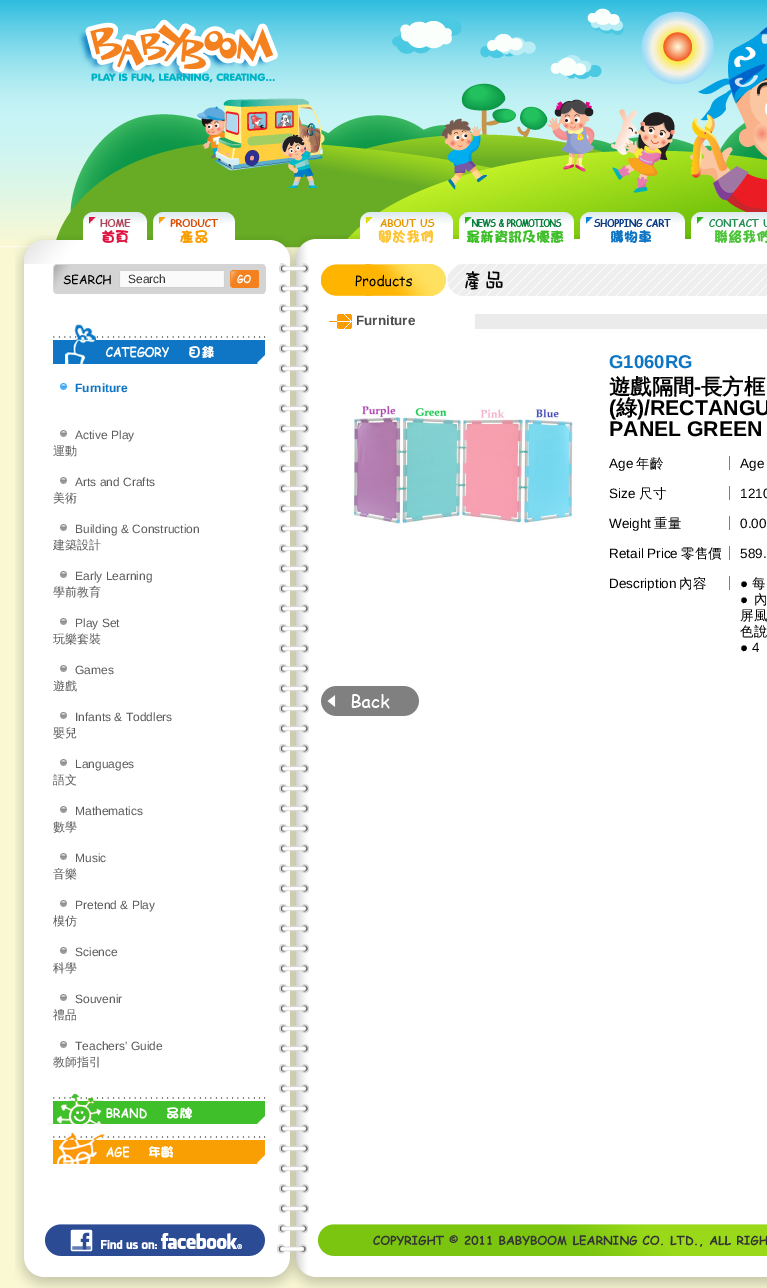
%!PS
<< /PageSize [767 1288] >> setpagedevice
/rgb { 3 { 255 div 3 1 roll } repeat setrgbcolor } def
/font { [ exch dup neg 0 0 3 -1 roll 0 0 ] selectfont } def
/picture { 5 dict begin { /h /w /y /x /name } { exch def } forall
  gsave x y translate w h scale
  w h 8 [w 0 0 h 0 0] name (r) file false 3 colorimage grestore end } def
0 1288 translate 1 -1 scale
4 setmiterlimit
249 248 211 rgb
0 0 767 1288 rectfill
(img/1.rgb) 0 0 767 247 picture
(img/2.rgb) 78 19 200 64 picture
(img/3.rgb) 392 8 322 77 picture
(img/5.rgb) 56 83 711 165 picture
(img/4.rgb) 690 27 77 185 picture
(img/6.rgb) 197 98 478 95 picture
(img/7.rgb) 15 235 752 29 picture
(img/8.rgb) 83 212 64 31 picture
(img/9.rgb) 153 212 82 31 picture
(img/10.rgb) 360 212 93 32 picture
(img/11.rgb) 459 212 115 31 picture
(img/12.rgb) 580 212 105 31 picture
(img/13.rgb) 691 212 76 31 picture
(img/14.rgb) 15 264 752 960 picture
(img/15.rgb) 53 264 213 30 picture
(img/16.rgb) 230 270 29 18 picture
(img/17.rgb) 53 324 213 40 picture
(img/18.rgb) 60 383 7 7 picture
(img/19.rgb) 60 430 7 7 picture
(img/19.rgb) 60 477 7 7 picture
(img/19.rgb) 60 524 7 7 picture
(img/19.rgb) 60 571 7 7 picture
(img/19.rgb) 60 618 7 7 picture
(img/19.rgb) 60 665 7 7 picture
(img/19.rgb) 60 712 7 7 picture
(img/19.rgb) 60 759 7 7 picture
(img/19.rgb) 60 806 7 7 picture
(img/19.rgb) 60 853 7 7 picture
(img/19.rgb) 60 900 7 7 picture
(img/19.rgb) 60 947 7 7 picture
(img/19.rgb) 60 994 7 7 picture
(img/19.rgb) 60 1041 7 7 picture
(img/20.rgb) 53 1093 213 31 picture
(img/21.rgb) 53 1132 213 32 picture
(img/22.rgb) 321 264 446 32 picture
(img/23.rgb) 329 314 438 15 picture
(img/24.rgb) 352 404 221 120 picture
[
  [729 456 1 14 128 128 128]
  [729 486 1 14 128 128 128]
  [729 516 1 14 128 128 128]
  [729 546 1 14 128 128 128]
  [729 576 1 14 128 128 128]
] { aload pop rgb rectfill } forall
(img/25.rgb) 321 686 98 30 picture
(img/26.rgb) 15 1224 752 64 picture
(img/27.rgb) 45 1224 220 32 picture
(img/28.rgb) 318 1224 449 32 picture
/LiberationSans-Regular 12 font
51 51 51 rgb
128 283 moveto (Search) show
/LiberationSans-Bold 12 font
15 118 197 rgb
75 392 moveto (Furniture) show
/LiberationSans-Regular 12 font
91 91 91 rgb
75 439 moveto (Active Play) show
/WenQuanYiZenHei-Medium 12 font
53 455 moveto (運動) show
/LiberationSans-Regular 12 font
75 486 moveto (Arts and Crafts) show
/WenQuanYiZenHei-Medium 12 font
53 502 moveto (美術) show
/LiberationSans-Regular 12 font
75 533 moveto (Building & Construction) show
/WenQuanYiZenHei-Medium 12 font
53 549 moveto (建築設計) show
/LiberationSans-Regular 12 font
75 580 moveto (Early Learning) show
/WenQuanYiZenHei-Medium 12 font
53 596 moveto (學前教育) show
/LiberationSans-Regular 12 font
75 627 moveto (Play Set) show
/WenQuanYiZenHei-Medium 12 font
53 643 moveto (玩樂套裝) show
/LiberationSans-Regular 12 font
75 674 moveto (Games) show
/WenQuanYiZenHei-Medium 12 font
53 690 moveto (遊戲) show
/LiberationSans-Regular 12 font
75 721 moveto (Infants & Toddlers) show
/WenQuanYiZenHei-Medium 12 font
53 737 moveto (嬰兒) show
/LiberationSans-Regular 12 font
75 768 moveto (Languages) show
/WenQuanYiZenHei-Medium 12 font
53 784 moveto (語文) show
/LiberationSans-Regular 12 font
75 815 moveto (Mathematics) show
/WenQuanYiZenHei-Medium 12 font
53 831 moveto (數學) show
/LiberationSans-Regular 12 font
75 862 moveto (Music) show
/WenQuanYiZenHei-Medium 12 font
53 878 moveto (音樂) show
/LiberationSans-Regular 12 font
75 909 moveto (Pretend & Play) show
/WenQuanYiZenHei-Medium 12 font
53 925 moveto (模仿) show
/LiberationSans-Regular 12 font
75 956 moveto (Science) show
/WenQuanYiZenHei-Medium 12 font
53 972 moveto (科學) show
/LiberationSans-Regular 12 font
75 1003 moveto (Souvenir) show
/WenQuanYiZenHei-Medium 12 font
53 1019 moveto (禮品) show
/LiberationSans-Regular 12 font
75 1050 moveto (Teachers' Guide) show
/WenQuanYiZenHei-Medium 12 font
53 1066 moveto (教師指引) show
/LiberationSans-Bold 13.5 font
77 77 77 rgb
356 325 moveto (Furniture) show
/LiberationSans-Bold 18.5 font
15 118 197 rgb
609 368 moveto (G1060RG) show
/WenQuanYiZenHei-Bold 21.25 font
0 0 0 rgb
609 394 moveto (遊戲隔間) show
/LiberationSans-Bold 21.25 font
694 394 moveto (-) show
/WenQuanYiZenHei-Bold 21.25 font
701 394 moveto (長方框) show
/LiberationSans-Bold 21.25 font
609 415 moveto (\() show
/WenQuanYiZenHei-Bold 21.25 font
616 415 moveto (綠) show
/LiberationSans-Bold 21.25 font
637 415 moveto (\)/RECTANGU) show
609 436 moveto (PANEL GREEN) show
/LiberationSans-Regular 13.5 font
609 468 moveto (Age) show
/WenQuanYiZenHei-Medium 13.5 font
636 468 moveto (年齡) show
/LiberationSans-Regular 13.5 font
740 468 moveto (Age) show
609 498 moveto (Size) show
/WenQuanYiZenHei-Medium 13.5 font
639 498 moveto (尺寸) show
/LiberationSans-Regular 13.5 font
740 498 moveto (1210) show
609 528 moveto (Weight) show
/WenQuanYiZenHei-Medium 13.5 font
654 528 moveto (重量) show
/LiberationSans-Regular 13.5 font
740 528 moveto (0.00) show
609 558 moveto (Retail Price) show
/WenQuanYiZenHei-Medium 13.5 font
681 558 moveto (零售價) show
/LiberationSans-Regular 13.5 font
740 558 moveto (589.) show
609 588 moveto (Description) show
/WenQuanYiZenHei-Medium 13.5 font
679 588 moveto (內容) show
/LiberationSans-Regular 13.5 font
740 588 moveto (●) show
/WenQuanYiZenHei-Medium 13.5 font
752 588 moveto (每) show
/LiberationSans-Regular 13.5 font
740 604 moveto 1 0 (●) ashow
/WenQuanYiZenHei-Medium 13.5 font
754 604 moveto 1 0 (內) ashow
740 620 moveto (屏風) show
740 636 moveto (色說) show
/LiberationSans-Regular 13.5 font
740 652 moveto (● 4) show
showpage
